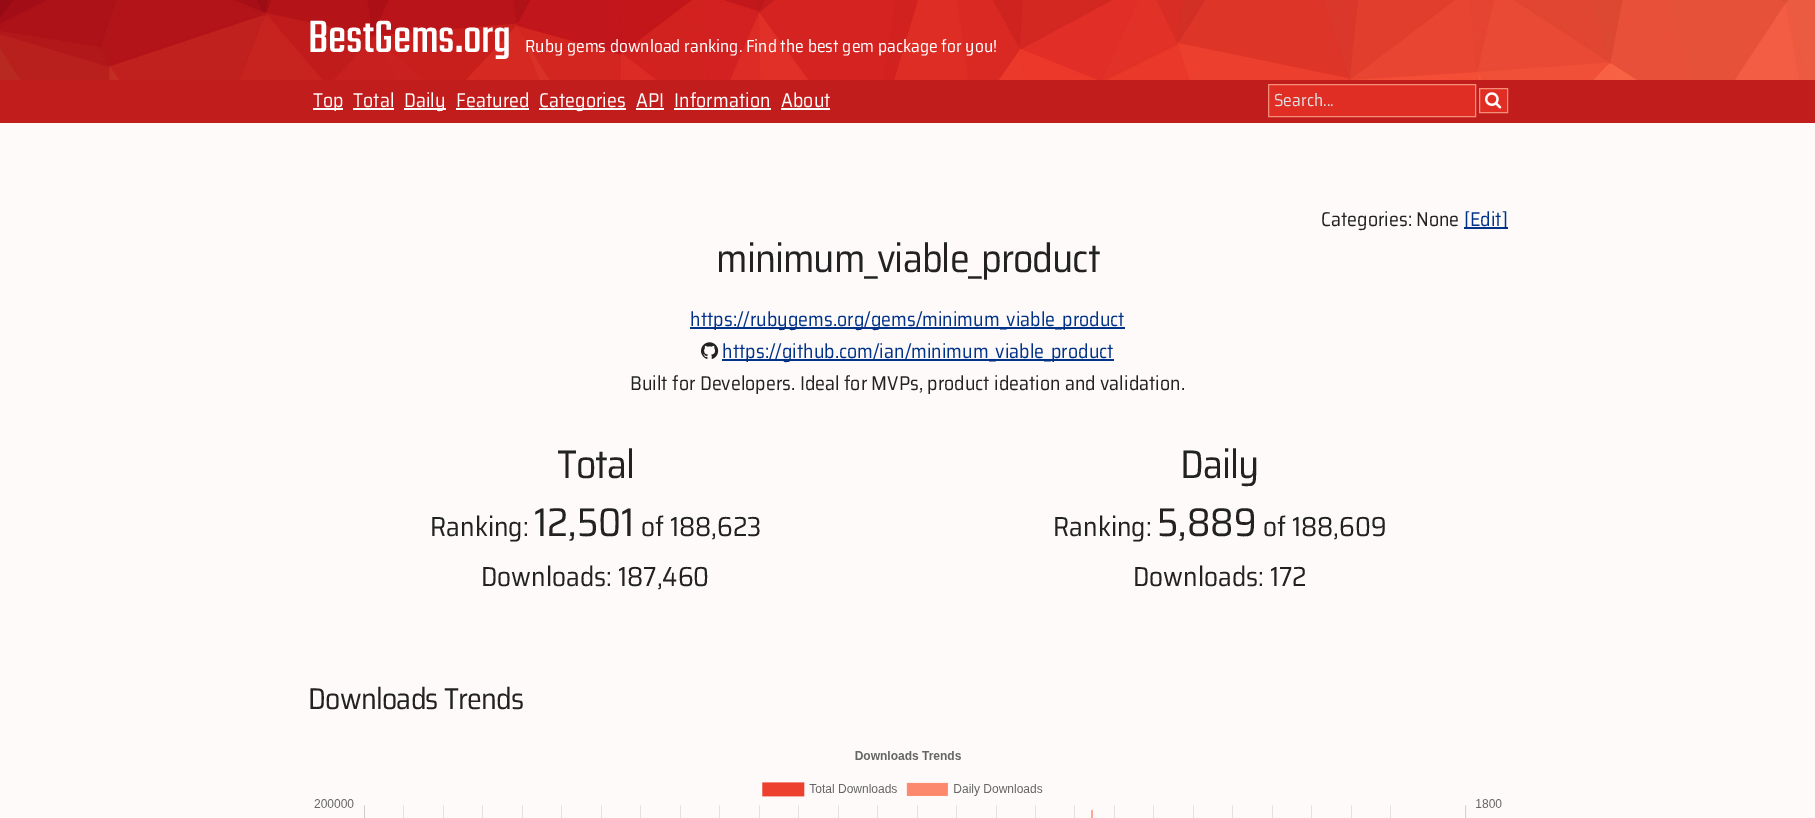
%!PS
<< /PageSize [1815 818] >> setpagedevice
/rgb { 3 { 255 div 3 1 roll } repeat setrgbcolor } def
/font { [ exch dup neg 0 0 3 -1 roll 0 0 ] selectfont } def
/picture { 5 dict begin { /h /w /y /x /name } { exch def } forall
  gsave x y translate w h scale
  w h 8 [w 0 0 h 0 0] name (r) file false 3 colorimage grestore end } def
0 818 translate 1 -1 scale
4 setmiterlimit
255 255 255 rgb
0 0 1815 818 rectfill
(img/1.rgb) 0 0 1815 80 picture
[
  [0 80 1815 43 193 29 28]
  [313 108 30 2 255 255 255]
  [353 108 41 2 255 255 255]
  [404 108 42 2 255 255 255]
  [456 108 73 2 255 255 255]
  [539 108 87 2 255 255 255]
  [636 108 28 2 255 255 255]
  [674 108 97 2 255 255 255]
  [781 108 49 2 255 255 255]
] { aload pop rgb rectfill } forall
224 46 37 rgb
1268.5 84.5 moveto 1475.5 84.5 lineto 1475.5 116.5 lineto 1268.5 116.5 lineto closepath gsave fill grestore
245 142 119 rgb
stroke
224 46 37 rgb
1479.5 88.5 moveto 1507.5 88.5 lineto 1507.5 112.5 lineto 1479.5 112.5 lineto closepath gsave fill grestore
245 142 119 rgb
stroke
(img/2.rgb) 1485 92 17 17 picture
[
  [0 123 1815 695 254 250 250]
  [1464 227 44 2 0 51 136]
  [690 327 435 2 0 51 136]
] { aload pop rgb rectfill } forall
(img/3.rgb) 701 342 18 17 picture
722 359 392 2 rectfill
(img/4.rgb) 314 751 1188 67 picture
/Teko-Regular 50 font
255 255 255 rgb
308 52 moveto (BestGems.org) show
/SairaSemiCondensed-Regular 17.5 font
525 52 moveto (Ruby gems download ranking. Find the best gem package for you!) show
/SairaSemiCondensed-Regular 20 font
[
  [(Top) 313 107]
  [(Total) 353 107]
  [(Daily) 404 107]
  [(Featured) 456 107]
  [(Categories) 539 107]
  [(API) 636 107]
  [(Information) 674 107]
  [(About) 781 107]
] { aload pop moveto show } forall
/SairaSemiCondensed-Regular 17.5 font
221 221 221 rgb
1274 106 moveto (Search...) show
/SairaSemiCondensed-Regular 20 font
34 34 34 rgb
1321 226 moveto (Categories: None) show
0 51 136 rgb
1464 226 moveto ([Edit]) show
/SairaSemiCondensed-Regular 40 font
34 34 34 rgb
716 272 moveto -1 0 (minimum_viable_product) ashow
/SairaSemiCondensed-Regular 20 font
0 51 136 rgb
690 326 moveto (https://rubygems.org/gems/minimum_viable_product) show
722 358 moveto (https://github.com/ian/minimum_viable_product) show
34 34 34 rgb
630 390 moveto (Built for Developers. Ideal for MVPs, product ideation and validation.) show
/SairaSemiCondensed-Regular 40 font
557 478 moveto -1 0 (Total) ashow
/SairaSemiCondensed-Regular 27.5 font
430 536 moveto (Ranking:) show
/SairaSemiCondensed-Regular 40 font
534 536 moveto (12,501) show
/SairaSemiCondensed-Regular 27.5 font
641 536 moveto (of 188,623) show
481 586 moveto (Downloads: 187,460) show
/SairaSemiCondensed-Regular 40 font
1180 478 moveto -1 0 (Daily) ashow
/SairaSemiCondensed-Regular 27.5 font
1053 536 moveto (Ranking:) show
/SairaSemiCondensed-Regular 40 font
1157 536 moveto (5,889) show
/SairaSemiCondensed-Regular 27.5 font
1263 536 moveto (of 188,609) show
1133 586 moveto (Downloads: 172) show
/SairaSemiCondensed-Regular 30 font
308 709 moveto -0.75 0 (Downloads Trends) ashow
showpage
